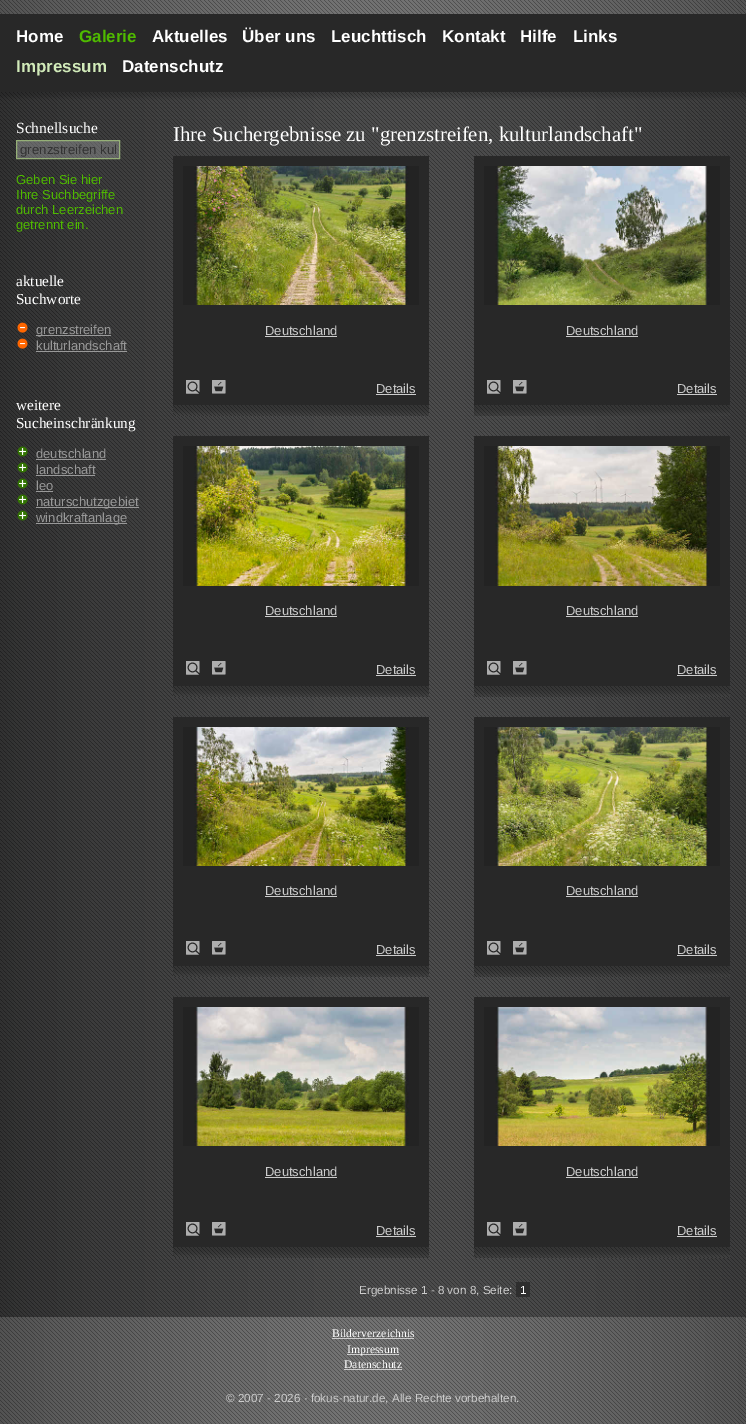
%!PS
<< /PageSize [746 1424] >> setpagedevice
/rgb { 3 { 255 div 3 1 roll } repeat setrgbcolor } def
/font { [ exch dup neg 0 0 3 -1 roll 0 0 ] selectfont } def
/picture { 5 dict begin { /h /w /y /x /name } { exch def } forall
  gsave x y translate w h scale
  w h 8 [w 0 0 h 0 0] name (r) file false 3 colorimage grestore end } def
0 1424 translate 1 -1 scale
4 setmiterlimit
255 255 255 rgb
0 0 746 1424 rectfill
(img/1.rgb) 0 0 746 1424 picture
40 40 40 rgb
0 14 746 77 rectfill
(img/2.rgb) 0 99 746 1218 picture
(img/3.rgb) 0 91 746 8 picture
(img/4.rgb) 17 141 102 17 picture
149 175 119 rgb
16.5 140.5 103 18 rectstroke
(img/5.rgb) 17 322 11 11 picture
153 153 153 rgb
36 335 75 1 rectfill
(img/5.rgb) 17 338 11 11 picture
36 351 91 1 rectfill
(img/6.rgb) 17 446 11 11 picture
36 459 70 1 rectfill
(img/6.rgb) 17 462 11 11 picture
36 475 59 1 rectfill
(img/6.rgb) 17 478 11 11 picture
36 491 17 1 rectfill
(img/6.rgb) 17 494 11 11 picture
36 507 103 1 rectfill
(img/6.rgb) 17 510 11 11 picture
36 523 91 1 rectfill
40 40 40 rgb
173 156 256 249 rectfill
(img/7.rgb) 183 166 236 139 picture
204 204 204 rgb
265 336 72 1 rectfill
(img/8.rgb) 186 380 14 14 picture
(img/9.rgb) 212 380 14 14 picture
376 394 40 1 rectfill
(img/10.rgb) 173 405 256 11 picture
40 40 40 rgb
474 156 256 249 rectfill
(img/11.rgb) 484 166 236 139 picture
204 204 204 rgb
566 336 72 1 rectfill
(img/8.rgb) 487 380 14 14 picture
(img/9.rgb) 513 380 14 14 picture
677 394 40 1 rectfill
(img/10.rgb) 474 405 256 11 picture
40 40 40 rgb
173 436 256 250 rectfill
(img/12.rgb) 183 446 236 140 picture
204 204 204 rgb
265 616 72 1 rectfill
(img/8.rgb) 186 661 14 14 picture
(img/9.rgb) 212 661 14 14 picture
376 675 40 1 rectfill
(img/10.rgb) 173 686 256 11 picture
40 40 40 rgb
474 436 256 250 rectfill
(img/13.rgb) 484 446 236 140 picture
204 204 204 rgb
566 616 72 1 rectfill
(img/8.rgb) 487 661 14 14 picture
(img/9.rgb) 513 661 14 14 picture
677 675 40 1 rectfill
(img/10.rgb) 474 686 256 11 picture
40 40 40 rgb
173 717 256 249 rectfill
(img/14.rgb) 183 727 236 139 picture
204 204 204 rgb
265 896 72 1 rectfill
(img/8.rgb) 186 941 14 14 picture
(img/9.rgb) 212 941 14 14 picture
376 955 40 1 rectfill
(img/10.rgb) 173 966 256 11 picture
40 40 40 rgb
474 717 256 249 rectfill
(img/15.rgb) 484 727 236 139 picture
204 204 204 rgb
566 896 72 1 rectfill
(img/8.rgb) 487 941 14 14 picture
(img/9.rgb) 513 941 14 14 picture
677 955 40 1 rectfill
(img/10.rgb) 474 966 256 11 picture
40 40 40 rgb
173 997 256 250 rectfill
(img/16.rgb) 183 1007 236 139 picture
204 204 204 rgb
265 1177 72 1 rectfill
(img/8.rgb) 186 1222 14 14 picture
(img/9.rgb) 212 1222 14 14 picture
376 1236 40 1 rectfill
(img/10.rgb) 173 1247 256 11 picture
40 40 40 rgb
474 997 256 250 rectfill
(img/17.rgb) 484 1007 236 139 picture
204 204 204 rgb
566 1177 72 1 rectfill
(img/8.rgb) 487 1222 14 14 picture
(img/9.rgb) 513 1222 14 14 picture
677 1236 40 1 rectfill
(img/10.rgb) 474 1247 256 11 picture
[
  [516 1282 14 15 46 46 46]
  [332 1338 82 1 204 204 204]
  [347 1354 52 1 204 204 204]
  [344 1369 58 1 204 204 204]
] { aload pop rgb rectfill } forall
/LiberationSans-Bold 17 font
255 255 255 rgb
16 42 moveto (Home) show
79 186 0 rgb
79 42 moveto (Galerie) show
255 255 255 rgb
[
  [(Aktuelles) 152 42]
  [(Über uns) 242 42]
  [(Leuchttisch) 331 42]
  [(Kontakt) 442 42]
  [(Hilfe) 520 42]
  [(Links) 573 42]
] { aload pop moveto show } forall
209 234 185 rgb
16 72 moveto (Impressum) show
255 255 255 rgb
122 72 moveto (Datenschutz) show
/LiberationSerif-Regular 15.5 font
16 133 moveto (Schnellsuche) show
/LiberationSans-Regular 13.25 font
51 51 51 rgb
20 154 moveto (grenzstreifen kul) show
/LiberationSans-Regular 13 font
79 186 0 rgb
[
  [(Geben Sie hier) 16 184]
  [(Ihre Suchbegriffe) 16 199]
  [(durch Leerzeichen) 16 214]
  [(getrennt ein.) 16 229]
] { aload pop moveto show } forall
/LiberationSerif-Regular 15.25 font
255 255 255 rgb
16 286 moveto (aktuelle) show
16 304 moveto (Suchworte) show
/LiberationSans-Regular 13 font
153 153 153 rgb
36 334 moveto (grenzstreifen) show
36 350 moveto (kulturlandschaft) show
/LiberationSerif-Regular 15.25 font
255 255 255 rgb
16 410 moveto (weitere) show
16 428 moveto (Sucheinschränkung) show
/LiberationSans-Regular 13 font
153 153 153 rgb
[
  [(deutschland) 36 458]
  [(landschaft) 36 474]
  [(leo) 36 490]
  [(naturschutzgebiet) 36 506]
  [(windkraftanlage) 36 522]
] { aload pop moveto show } forall
/LiberationSerif-Regular 20.8 font
255 255 255 rgb
173 141 moveto (Ihre Suchergebnisse zu "grenzstreifen, kulturlandschaft") show
/LiberationSans-Regular 13 font
204 204 204 rgb
[
  [(Deutschland) 265 335]
  [(Details) 376 393]
  [(Deutschland) 566 335]
  [(Details) 677 393]
  [(Deutschland) 265 615]
  [(Details) 376 674]
  [(Deutschland) 566 615]
  [(Details) 677 674]
  [(Deutschland) 265 895]
  [(Details) 376 954]
  [(Deutschland) 566 895]
  [(Details) 677 954]
  [(Deutschland) 265 1176]
  [(Details) 376 1235]
  [(Deutschland) 566 1176]
  [(Details) 677 1235]
] { aload pop moveto show } forall
/LiberationSans-Regular 11.7 font
359 1294 moveto (Ergebnisse 1 - 8 von 8, Seite:) show
255 255 255 rgb
520 1294 moveto (1) show
/LiberationSerif-Regular 11.7 font
[
  [(Bilderverzeichnis) 332 1337]
  [(Impressum) 347 1353]
  [(Datenschutz) 344 1368]
] { aload pop moveto show } forall
/LiberationSans-Regular 11.7 font
204 204 204 rgb
226 1402 moveto (© 2007 - 2026 · fokus-natur.de, Alle Rechte vorbehalten.) show
showpage
